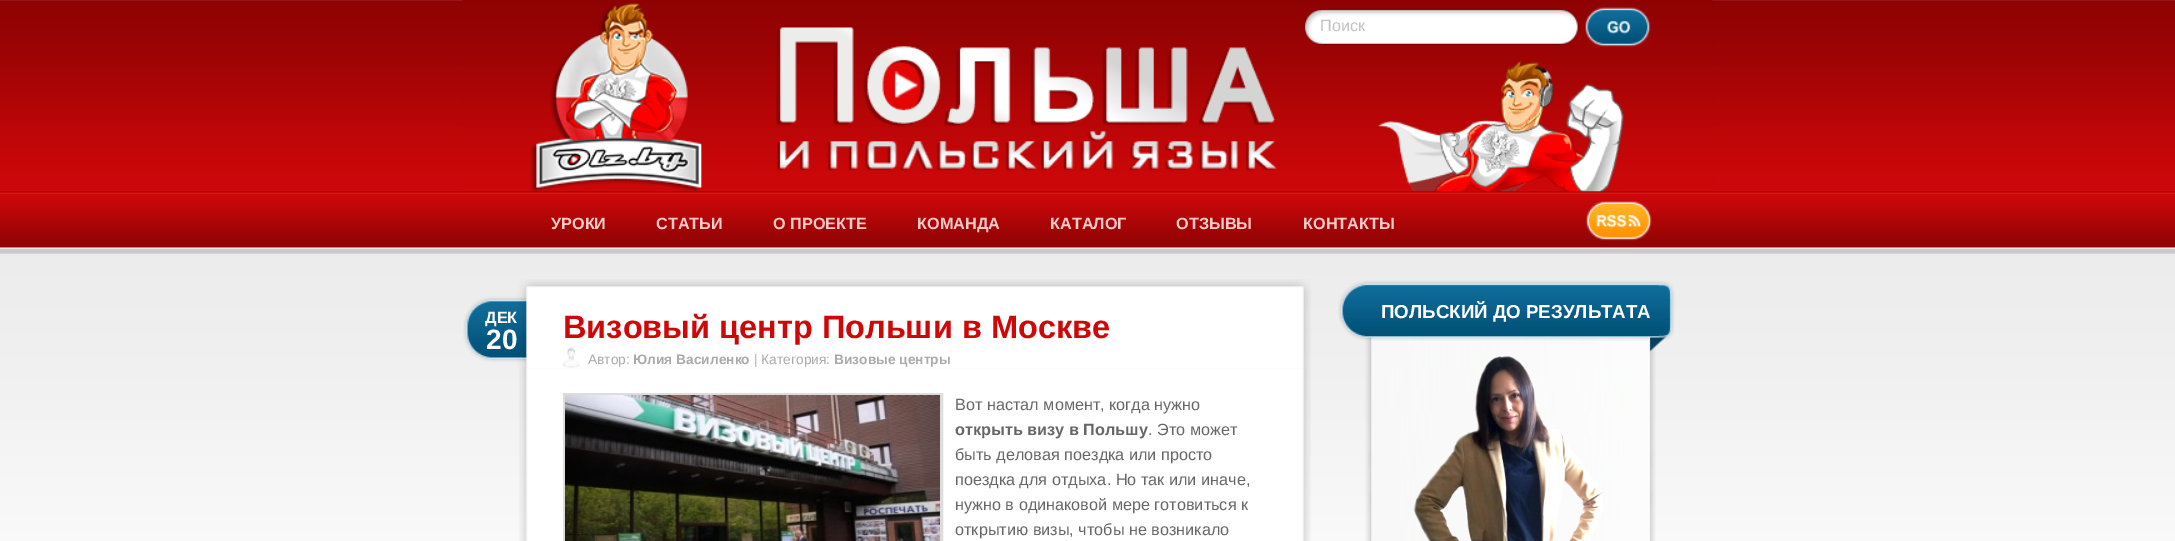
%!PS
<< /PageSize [2175 541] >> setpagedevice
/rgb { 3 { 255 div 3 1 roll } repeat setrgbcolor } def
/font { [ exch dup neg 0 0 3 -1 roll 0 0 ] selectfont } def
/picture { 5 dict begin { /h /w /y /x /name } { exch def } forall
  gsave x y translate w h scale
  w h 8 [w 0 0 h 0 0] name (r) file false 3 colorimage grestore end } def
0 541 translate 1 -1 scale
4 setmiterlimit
255 255 255 rgb
0 0 2175 541 rectfill
(img/1.rgb) 0 0 2175 541 picture
(img/2.rgb) 462 0 1251 192 picture
(img/3.rgb) 1303 8 276 37 picture
(img/4.rgb) 1585 7 66 40 picture
(img/5.rgb) 1586 201 66 40 picture
(img/6.rgb) 463 279 848 90 picture
(img/7.rgb) 562 347 18 21 picture
(img/8.rgb) 519 368 792 173 picture
221 221 221 rgb
3 setlinewidth
564.5 394.5 377 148 rectstroke
(img/9.rgb) 565 395 375 146 picture
(img/10.rgb) 1365 337 291 204 picture
(img/11.rgb) 1338 280 337 72 picture
(img/12.rgb) 1413 356 190 185 picture
/LiberationSans-Regular 16.25 font
194 194 194 rgb
1320 31 moveto (Поиск) show
/LiberationSans-Bold 16.25 font
255 204 204 rgb
[
  [(УРОКИ) 551 229]
  [(СТАТЬИ) 656 229]
  [(О ПРОЕКТЕ) 773 229]
  [(КОМАНДА) 917 229]
  [(КАТАЛОГ) 1050 229]
  [(ОТЗЫВЫ) 1176 229]
  [(КОНТАКТЫ) 1303 229]
] { aload pop moveto show } forall
255 255 255 rgb
485 323 moveto (ДЕК) show
/LiberationSans-Bold 28 font
486 349 moveto (20) show
/LiberationSans-Bold 32.5 font
206 7 9 rgb
563 338 moveto (Визовый центр Польши в Москве) show
/LiberationSans-Regular 13.75 font
170 170 170 rgb
588 364 moveto (Автор:) show
/LiberationSans-Bold 13.75 font
633 364 moveto (Юлия Василенко) show
/LiberationSans-Regular 13.75 font
754 364 moveto (| Категория:) show
/LiberationSans-Bold 13.75 font
834 364 moveto (Визовые центры) show
/LiberationSans-Regular 16.25 font
102 102 102 rgb
955 410 moveto (Вот настал момент, когда нужно) show
/LiberationSans-Bold 16.25 font
955 435 moveto (открыть визу в Польшу) show
/LiberationSans-Regular 16.25 font
[
  [(. Это может) 1148 435]
  [(быть деловая поездка или просто) 955 460]
  [(поездка для отдыха. Но так или иначе,) 955 485]
  [(нужно в одинаковой мере готовиться к) 955 510]
  [(открытию визы, чтобы не возникало) 955 535]
] { aload pop moveto show } forall
/LiberationSans-Bold 18.75 font
255 255 255 rgb
1381 318 moveto (ПОЛЬСКИЙ ДО РЕЗУЛЬТАТА) show
showpage
